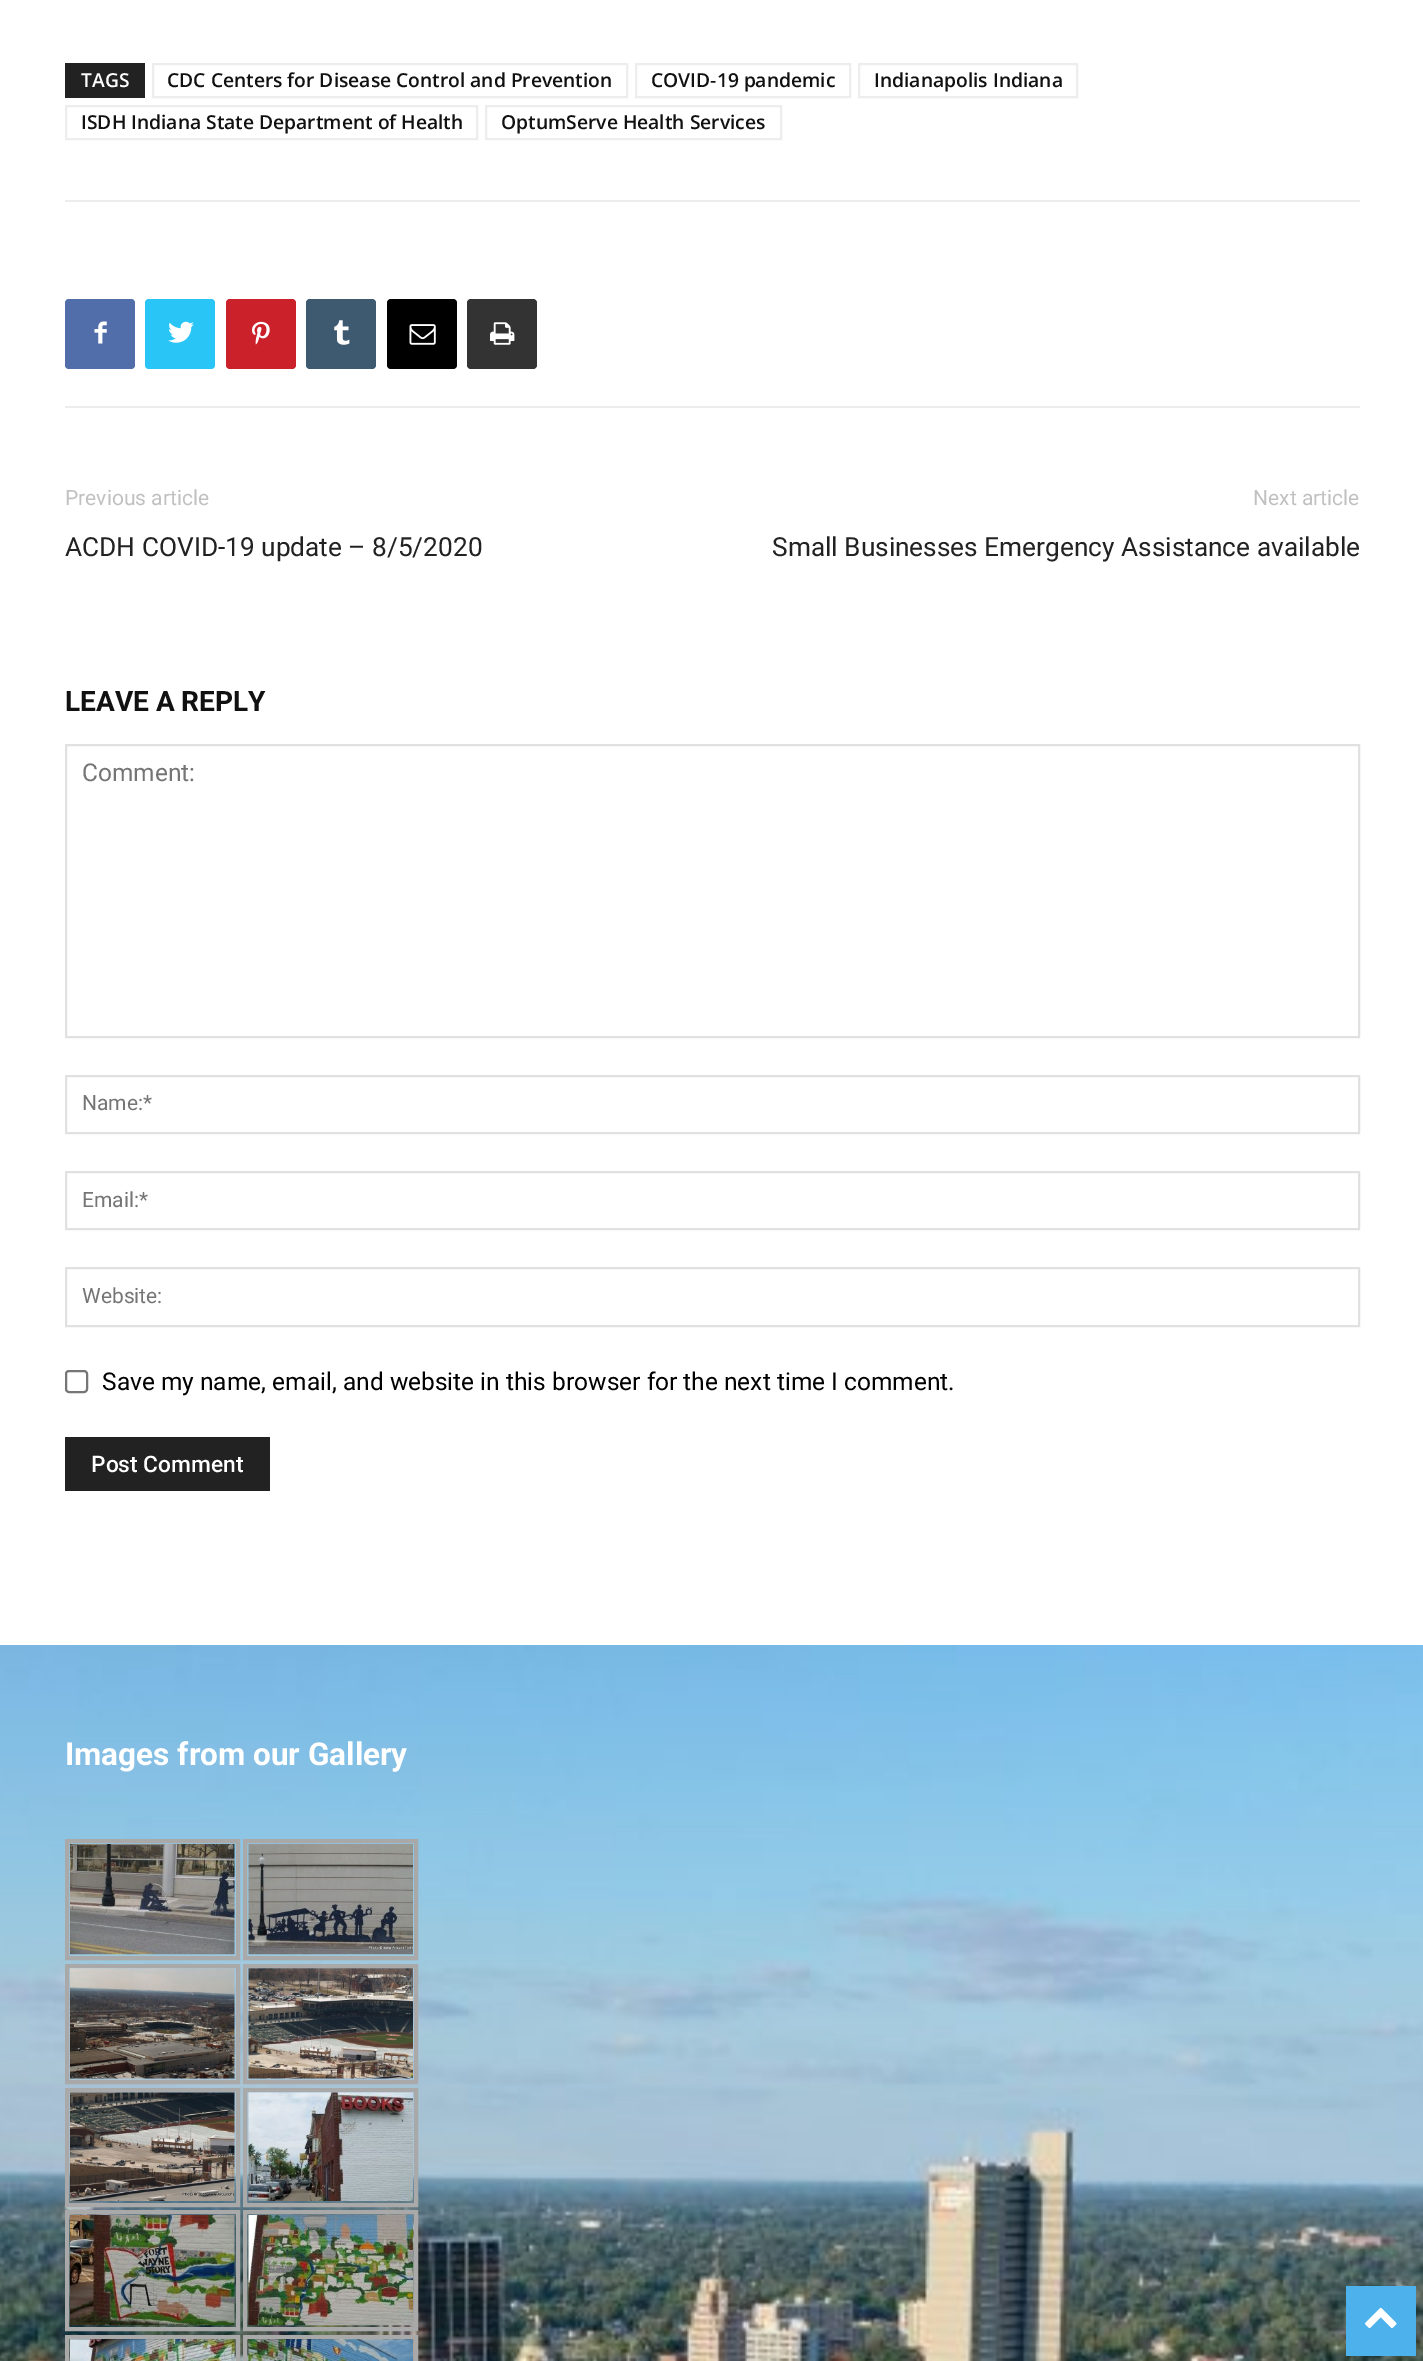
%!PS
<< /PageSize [1423 2361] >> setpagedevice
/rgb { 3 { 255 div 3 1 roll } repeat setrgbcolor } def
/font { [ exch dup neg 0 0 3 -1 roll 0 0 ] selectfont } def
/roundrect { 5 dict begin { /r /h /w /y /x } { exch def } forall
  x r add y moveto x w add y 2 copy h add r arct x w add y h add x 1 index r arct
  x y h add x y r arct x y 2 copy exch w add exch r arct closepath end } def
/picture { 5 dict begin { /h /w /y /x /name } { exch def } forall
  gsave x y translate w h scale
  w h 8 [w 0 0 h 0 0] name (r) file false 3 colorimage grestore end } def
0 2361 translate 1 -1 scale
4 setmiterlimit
255 255 255 rgb
0 0 1423 2361 rectfill
34 34 34 rgb
65 63 80 35 rectfill
237 237 237 rgb
2 setlinewidth
153 64 474 33 rectstroke
636 64 214 33 rectstroke
859 64 218 33 rectstroke
66 106 411 33 rectstroke
486 106 295 33 rectstroke
65 200 1295 2 rectfill
65 406 1295 2 rectfill
81 110 171 rgb
65 299 70 70 4 roundrect fill
(img/1.rgb) 94 321 13 23 picture
41 197 246 rgb
145 299 70 70 4 roundrect fill
(img/2.rgb) 168 321 26 22 picture
202 33 42 rgb
226 299 70 70 4 roundrect fill
(img/3.rgb) 252 321 18 24 picture
62 90 112 rgb
306 299 70 70 4 roundrect fill
(img/4.rgb) 334 320 16 25 picture
0 0 0 rgb
387 299 70 70 4 roundrect fill
(img/5.rgb) 409 324 27 21 picture
51 51 51 rgb
467 299 70 70 4 roundrect fill
(img/6.rgb) 490 322 25 23 picture
225 225 225 rgb
66 745 1293 292 rectstroke
66 1076 1293 57 rectstroke
66 1172 1293 57 rectstroke
66 1268 1293 58 rectstroke
118 118 118 rgb
66 1371 21 21 3 roundrect stroke
34 34 34 rgb
65 1437 205 54 rectfill
(img/7.rgb) 0 1645 1423 716 picture
169 169 169 rgb
4 setlinewidth
67 1841 171 117 rectstroke
(img/8.rgb) 70 1844 165 111 picture
245 1841 171 117 rectstroke
(img/9.rgb) 248 1844 165 111 picture
67 1966 171 116 rectstroke
(img/10.rgb) 70 1968 165 111 picture
245 1966 171 116 rectstroke
(img/11.rgb) 248 1968 165 111 picture
67 2090 171 115 rectstroke
(img/12.rgb) 70 2092 165 109 picture
245 2090 171 115 rectstroke
(img/13.rgb) 248 2092 165 109 picture
67 2212 171 117 rectstroke
(img/14.rgb) 70 2215 165 111 picture
245 2212 171 117 rectstroke
(img/15.rgb) 248 2215 165 111 picture
67 2337 171 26 rectstroke
(img/16.rgb) 70 2339 165 22 picture
245 2337 171 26 rectstroke
(img/17.rgb) 248 2339 165 22 picture
77 178 236 rgb
1346 2286 70 70 rectfill
(img/18.rgb) 1365 2307 32 21 picture
/OpenSans-SemiBold 19.25 font
255 255 255 rgb
81 87 moveto (TAGS) show
17 17 17 rgb
[
  [(CDC Centers for Disease Control and Prevention) 167 87]
  [(COVID-19 pandemic) 651 87]
  [(Indianapolis Indiana) 874 87]
  [(ISDH Indiana State Department of Health) 81 129]
  [(OptumServe Health Services) 501 129]
] { aload pop moveto show } forall
/Roboto-Regular 21 font
193 193 193 rgb
65 505 moveto (Previous article) show
/Roboto-Regular 26.25 font
34 34 34 rgb
65 556 moveto (ACDH COVID-19 update – 8/5/2020) show
/Roboto-Regular 21 font
193 193 193 rgb
1253 505 moveto (Next article) show
/Roboto-Regular 26.25 font
34 34 34 rgb
772 556 moveto (Small Businesses Emergency Assistance available) show
/Roboto-Bold 28 font
17 17 17 rgb
65 711 moveto (LEAVE A REPLY) show
/Roboto-Regular 24.5 font
117 117 117 rgb
82 781 moveto (Comment:) show
/Roboto-Regular 21 font
[
  [(Name:*) 82 1110]
  [(Email:*) 82 1207]
  [(Website:) 82 1303]
] { aload pop moveto show } forall
/Roboto-Regular 24.5 font
0 0 0 rgb
102 1390 moveto (Save my name, email, and website in this browser for the next time I comment.) show
/Roboto-Medium 22.75 font
255 255 255 rgb
91 1472 moveto (Post Comment) show
/Roboto-Bold 31.5 font
65 1765 moveto (Images from our Gallery) show
showpage
